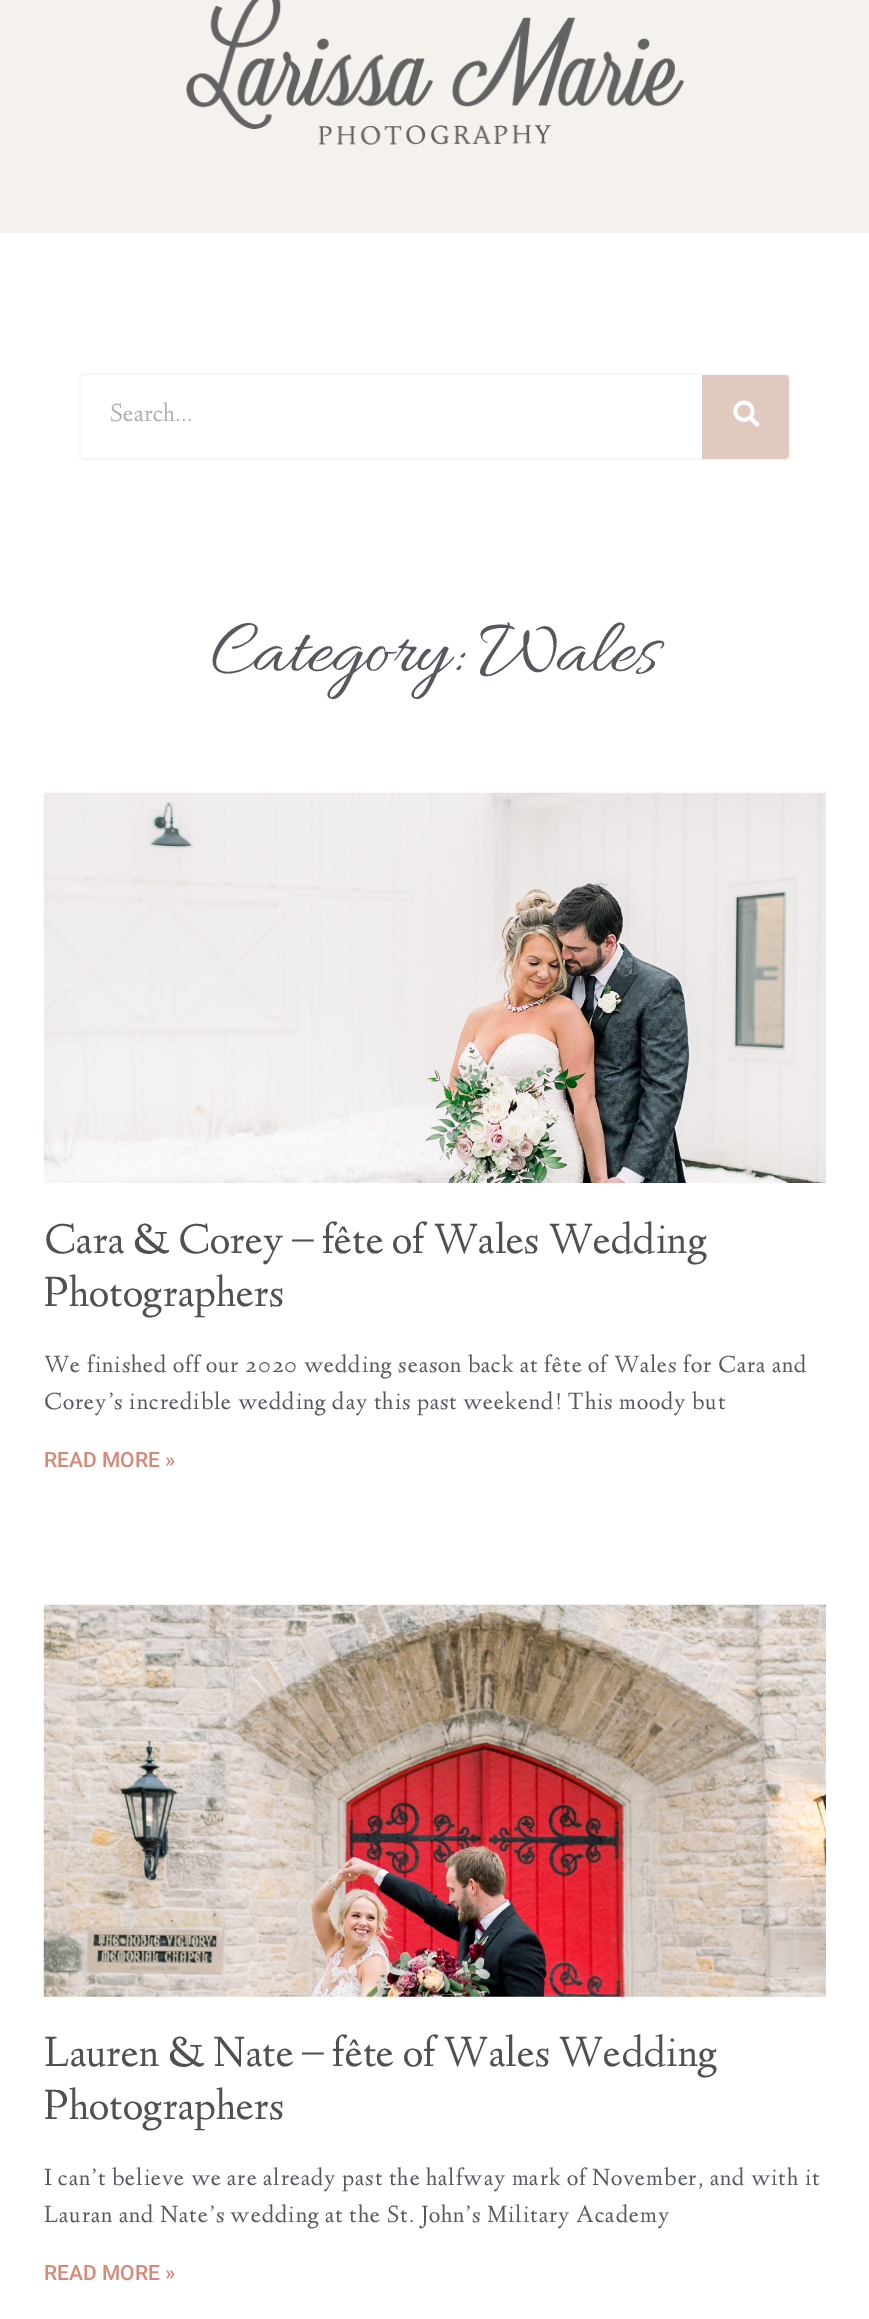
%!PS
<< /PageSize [869 2319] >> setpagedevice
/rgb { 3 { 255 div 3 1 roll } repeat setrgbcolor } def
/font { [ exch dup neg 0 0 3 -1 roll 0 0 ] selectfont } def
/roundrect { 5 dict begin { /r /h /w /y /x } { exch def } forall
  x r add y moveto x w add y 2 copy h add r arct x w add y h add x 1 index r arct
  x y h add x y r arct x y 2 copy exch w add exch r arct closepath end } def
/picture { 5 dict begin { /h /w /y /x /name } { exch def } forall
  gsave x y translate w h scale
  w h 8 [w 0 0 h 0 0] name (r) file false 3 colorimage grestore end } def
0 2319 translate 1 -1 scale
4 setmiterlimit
255 255 255 rgb
0 0 869 2319 rectfill
[
  [0 0 869 231 245 241 237]
  [0 226 869 2 246 244 242]
  [0 231 869 2 246 244 242]
] { aload pop rgb rectfill } forall
(img/1.rgb) 186 0 498 145 picture
247 247 247 rgb
2 setlinewidth
80 374 710 85 4 roundrect stroke
224 202 192 rgb
702 375 moveto 785 375 lineto 787 375 789 377 789 379 curveto 789 455 lineto 789 457 787 459 785 459 curveto 702 459 lineto closepath fill
(img/2.rgb) 733 400 27 27 picture
(img/3.rgb) 43 792 783 391 picture
(img/4.rgb) 43 1604 783 393 picture
/LindenHill-Regular 26 font
175 175 175 rgb
110 421 moveto (Search...) show
/Allura-Regular 78.75 font
84 89 95 rgb
211 670 moveto (Category: Wales) show
/LindenHill-Regular 43.75 font
80 80 80 rgb
44 1253 moveto (Cara & Corey – fête of Wales Wedding) show
44 1306 moveto (Photographers) show
/LindenHill-Regular 24.5 font
84 89 95 rgb
44 1372 moveto 0.88 0 (We finished off our 2020 wedding season back at fête of Wales for Cara and) ashow
44 1409 moveto 0.88 0 (Corey’s incredible wedding day this past weekend! This moody but) ashow
/Roboto-Medium 21 font
219 135 119 rgb
44 1467 moveto (READ MORE ») show
/LindenHill-Regular 43.75 font
80 80 80 rgb
44 2066 moveto (Lauren & Nate – fête of Wales Wedding) show
44 2119 moveto (Photographers) show
/LindenHill-Regular 24.5 font
84 89 95 rgb
44 2185 moveto 0.88 0 (I can’t believe we are already past the halfway mark of November, and with it) ashow
44 2222 moveto 0.88 0 (Lauran and Nate’s wedding at the St. John’s Military Academy) ashow
/Roboto-Medium 21 font
219 135 119 rgb
44 2280 moveto (READ MORE ») show
showpage
